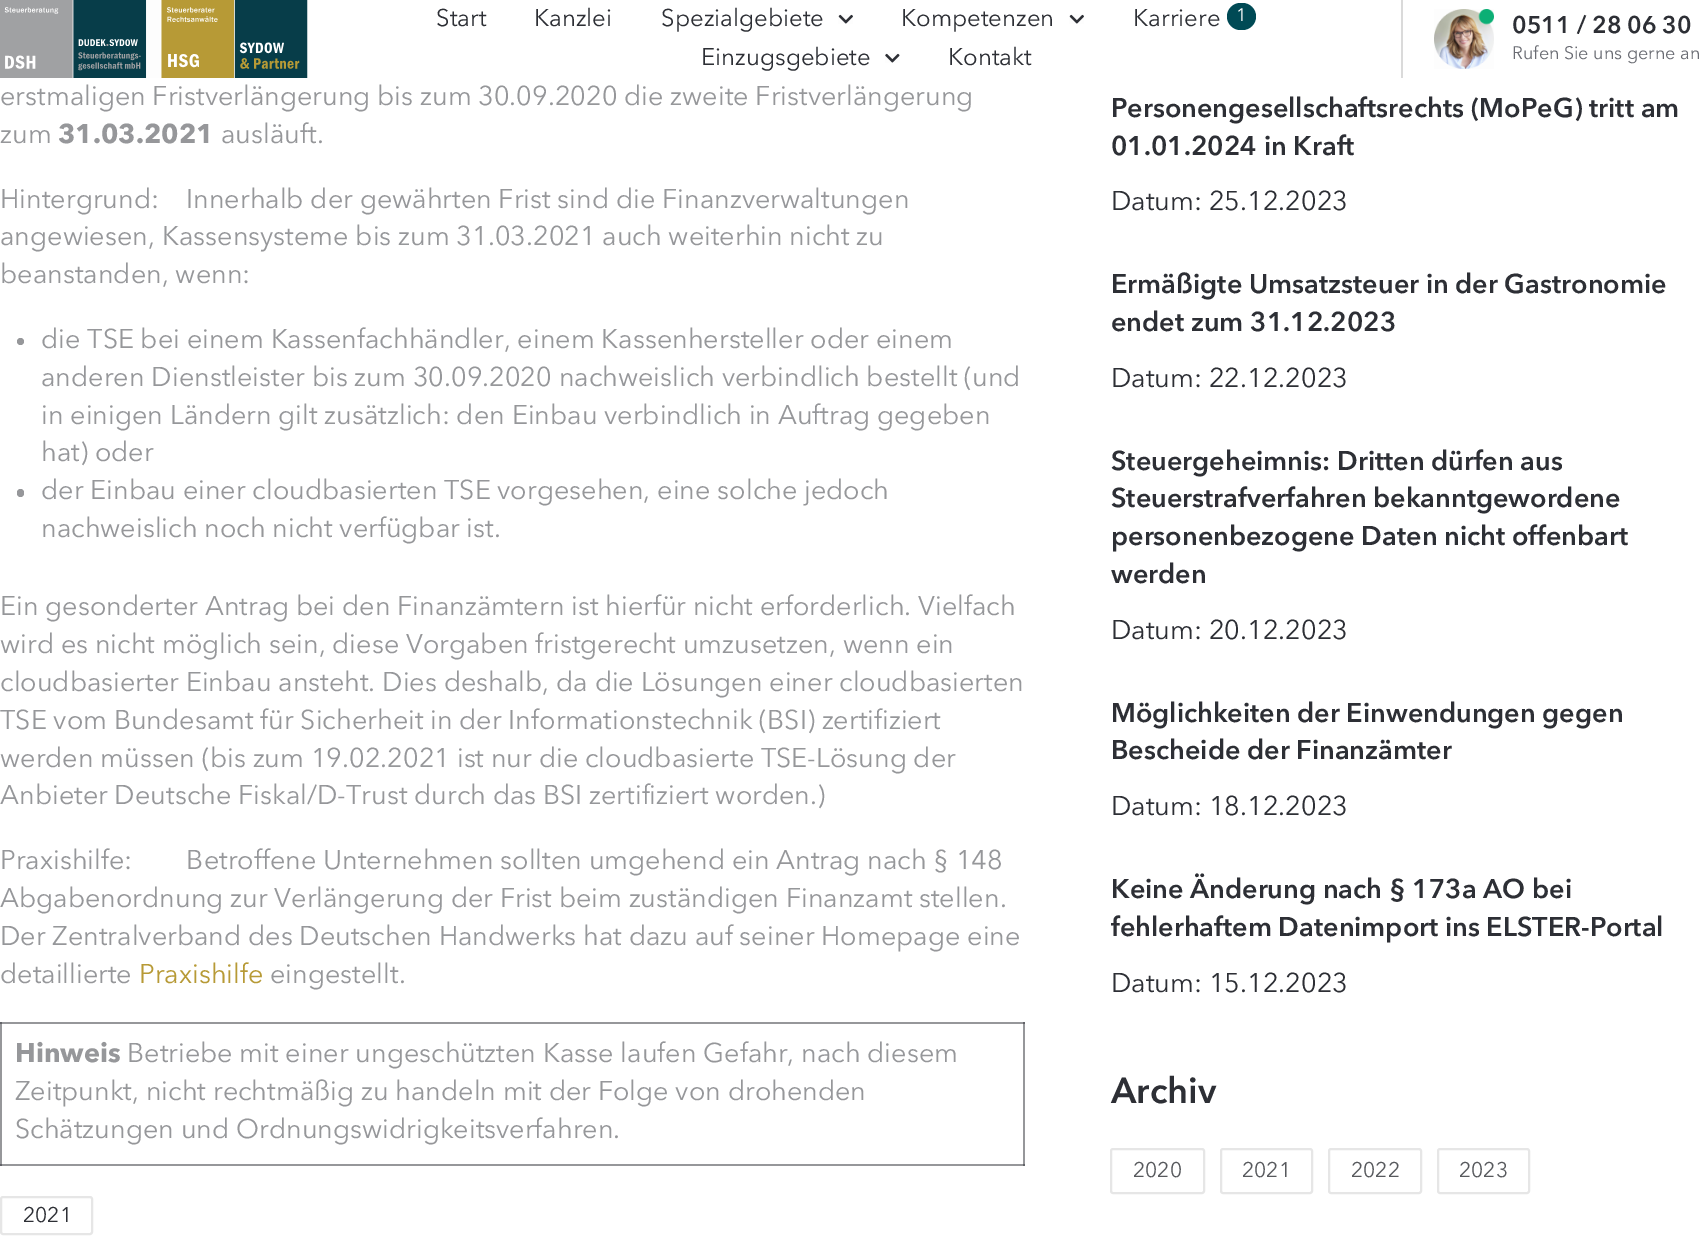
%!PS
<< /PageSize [1708 1241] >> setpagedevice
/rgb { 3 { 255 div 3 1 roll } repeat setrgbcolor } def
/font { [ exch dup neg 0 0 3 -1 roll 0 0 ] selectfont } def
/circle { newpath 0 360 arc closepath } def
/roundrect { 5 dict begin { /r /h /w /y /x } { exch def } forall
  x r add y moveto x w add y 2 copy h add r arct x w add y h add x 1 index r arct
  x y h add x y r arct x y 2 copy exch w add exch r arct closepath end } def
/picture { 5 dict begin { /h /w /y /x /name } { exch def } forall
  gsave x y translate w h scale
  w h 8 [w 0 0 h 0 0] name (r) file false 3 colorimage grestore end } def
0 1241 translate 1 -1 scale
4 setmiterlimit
255 255 255 rgb
0 0 1708 1241 rectfill
[
  [0 1022 2 144 150 151 154]
  [0 1164 1025 2 150 151 154]
  [0 1164 2 2 98 99 104]
  [1023 1022 2 144 150 151 154]
  [1023 1164 2 2 98 99 104]
] { aload pop rgb rectfill } forall
(img/1.rgb) 0 0 308 78 picture
(img/2.rgb) 838 14 15 10 picture
(img/2.rgb) 1069 14 15 10 picture
0 74 85 rgb
1227 3 29 27 13.5 roundrect fill
(img/3.rgb) 885 53 15 10 picture
218 218 218 rgb
1401 0 2 78 rectfill
(img/4.rgb) 1434 9 60 60 picture
150 151 154 rgb
20.5 341.5 3.5 circle fill
17 489 7 8 3.5 roundrect fill
[
  [0 1022 1025 2 150 151 154]
  [0 1022 2 2 98 99 104]
  [1023 1022 2 2 98 99 104]
] { aload pop rgb rectfill } forall
230 230 230 rgb
2 setlinewidth
1 1197 91 37 2 roundrect stroke
1111 1149 93 44 2 roundrect stroke
1221 1149 91 44 2 roundrect stroke
1329 1149 92 44 2 roundrect stroke
1438 1149 91 44 2 roundrect stroke
/AvenirNext-Regular 24 font
45 47 53 rgb
[
  [(Start) 436 26]
  [(Kanzlei) 534 26]
  [(Spezialgebiete) 661 26]
  [(Kompetenzen) 901 26]
  [(Karriere) 1133 26]
] { aload pop moveto show } forall
/AvenirNext-Regular 18 font
255 255 255 rgb
1236 21 moveto (1) show
/AvenirNext-Regular 24 font
45 47 53 rgb
701 65 moveto (Einzugsgebiete) show
948 65 moveto (Kontakt) show
/AvenirNext-SemiBold 24 font
1512 33 moveto (0511 / 28 06 30) show
/AvenirNext-Regular 18 font
106 108 115 rgb
1512 59 moveto (Rufen Sie uns gerne an) show
/AvenirNext-Regular 27 font
150 151 154 rgb
0 105 moveto (erstmaligen Fristverlängerung bis zum 30.09.2020 die zweite Fristverlängerung) show
0 143 moveto (zum) show
/AvenirNext-Bold 27 font
58 143 moveto (31.03.2021) show
/AvenirNext-Regular 27 font
[
  [(ausläuft.) 221 143]
  [(Hintergrund:    Innerhalb der gewährten Frist sind die Finanzverwaltungen) 0 208]
  [(angewiesen, Kassensysteme bis zum 31.03.2021 auch weiterhin nicht zu) 0 245]
  [(beanstanden, wenn:) 0 283]
  [(die TSE bei einem Kassenfachhändler, einem Kassenhersteller oder einem) 41 348]
  [(anderen Dienstleister bis zum 30.09.2020 nachweislich verbindlich bestellt \(und) 41 386]
  [(in einigen Ländern gilt zusätzlich: den Einbau verbindlich in Auftrag gegeben) 41 424]
  [(hat\) oder) 41 461]
  [(der Einbau einer cloudbasierten TSE vorgesehen, eine solche jedoch) 41 499]
  [(nachweislich noch nicht verfügbar ist.) 41 537]
  [(Ein gesonderter Antrag bei den Finanzämtern ist hierfür nicht erforderlich. Vielfach) 0 615]
  [(wird es nicht möglich sein, diese Vorgaben fristgerecht umzusetzen, wenn ein) 0 653]
  [(cloudbasierter Einbau ansteht. Dies deshalb, da die Lösungen einer cloudbasierten) 0 691]
  [(TSE vom Bundesamt für Sicherheit in der Informationstechnik \(BSI\) zertifiziert) 0 729]
  [(werden müssen \(bis zum 19.02.2021 ist nur die cloudbasierte TSE-Lösung der) 0 767]
  [(Anbieter Deutsche Fiskal/D-Trust durch das BSI zertifiziert worden.\)) 0 804]
  [(Praxishilfe:        Betroffene Unternehmen sollten umgehend ein Antrag nach § 148) 0 869]
  [(Abgabenordnung zur Verlängerung der Frist beim zuständigen Finanzamt stellen.) 0 907]
  [(Der Zentralverband des Deutschen Handwerks hat dazu auf seiner Homepage eine) 0 945]
  [(detaillierte) 0 983]
] { aload pop moveto show } forall
183 154 54 rgb
139 983 moveto (Praxishilfe) show
150 151 154 rgb
270 983 moveto (eingestellt.) show
/AvenirNext-Bold 27 font
15 1062 moveto (Hinweis) show
/AvenirNext-Regular 27 font
[
  [(Betriebe mit einer ungeschützten Kasse laufen Gefahr, nach diesem) 127 1062]
  [(Zeitpunkt, nicht rechtmäßig zu handeln mit der Folge von drohenden) 15 1100]
  [(Schätzungen und Ordnungswidrigkeitsverfahren.) 15 1138]
] { aload pop moveto show } forall
/AvenirNext-Regular 21 font
45 47 53 rgb
23 1222 moveto (2021) show
/AvenirNext-SemiBold 27 font
1111 117 moveto (Personengesellschaftsrechts \(MoPeG\) tritt am) show
1111 155 moveto (01.01.2024 in Kraft) show
/AvenirNext-Regular 27 font
1111 210 moveto (Datum: 25.12.2023) show
/AvenirNext-SemiBold 27 font
1111 293 moveto (Ermäßigte Umsatzsteuer in der Gastronomie) show
1111 331 moveto (endet zum 31.12.2023) show
/AvenirNext-Regular 27 font
1111 387 moveto (Datum: 22.12.2023) show
/AvenirNext-SemiBold 27 font
[
  [(Steuergeheimnis: Dritten dürfen aus) 1111 470]
  [(Steuerstrafverfahren bekanntgewordene) 1111 507]
  [(personenbezogene Daten nicht offenbart) 1111 545]
  [(werden) 1111 583]
] { aload pop moveto show } forall
/AvenirNext-Regular 27 font
1111 639 moveto (Datum: 20.12.2023) show
/AvenirNext-SemiBold 27 font
1111 722 moveto (Möglichkeiten der Einwendungen gegen) show
1111 759 moveto (Bescheide der Finanzämter) show
/AvenirNext-Regular 27 font
1111 815 moveto (Datum: 18.12.2023) show
/AvenirNext-SemiBold 27 font
1111 898 moveto (Keine Änderung nach § 173a AO bei) show
1111 936 moveto (fehlerhaftem Datenimport ins ELSTER-Portal) show
/AvenirNext-Regular 27 font
1111 992 moveto (Datum: 15.12.2023) show
/AvenirNext-SemiBold 36 font
1111 1103 moveto (Archiv) show
/AvenirNext-Regular 21 font
87 89 93 rgb
[
  [(2020) 1133 1177]
  [(2021) 1242 1177]
  [(2022) 1351 1177]
  [(2023) 1459 1177]
] { aload pop moveto show } forall
showpage
